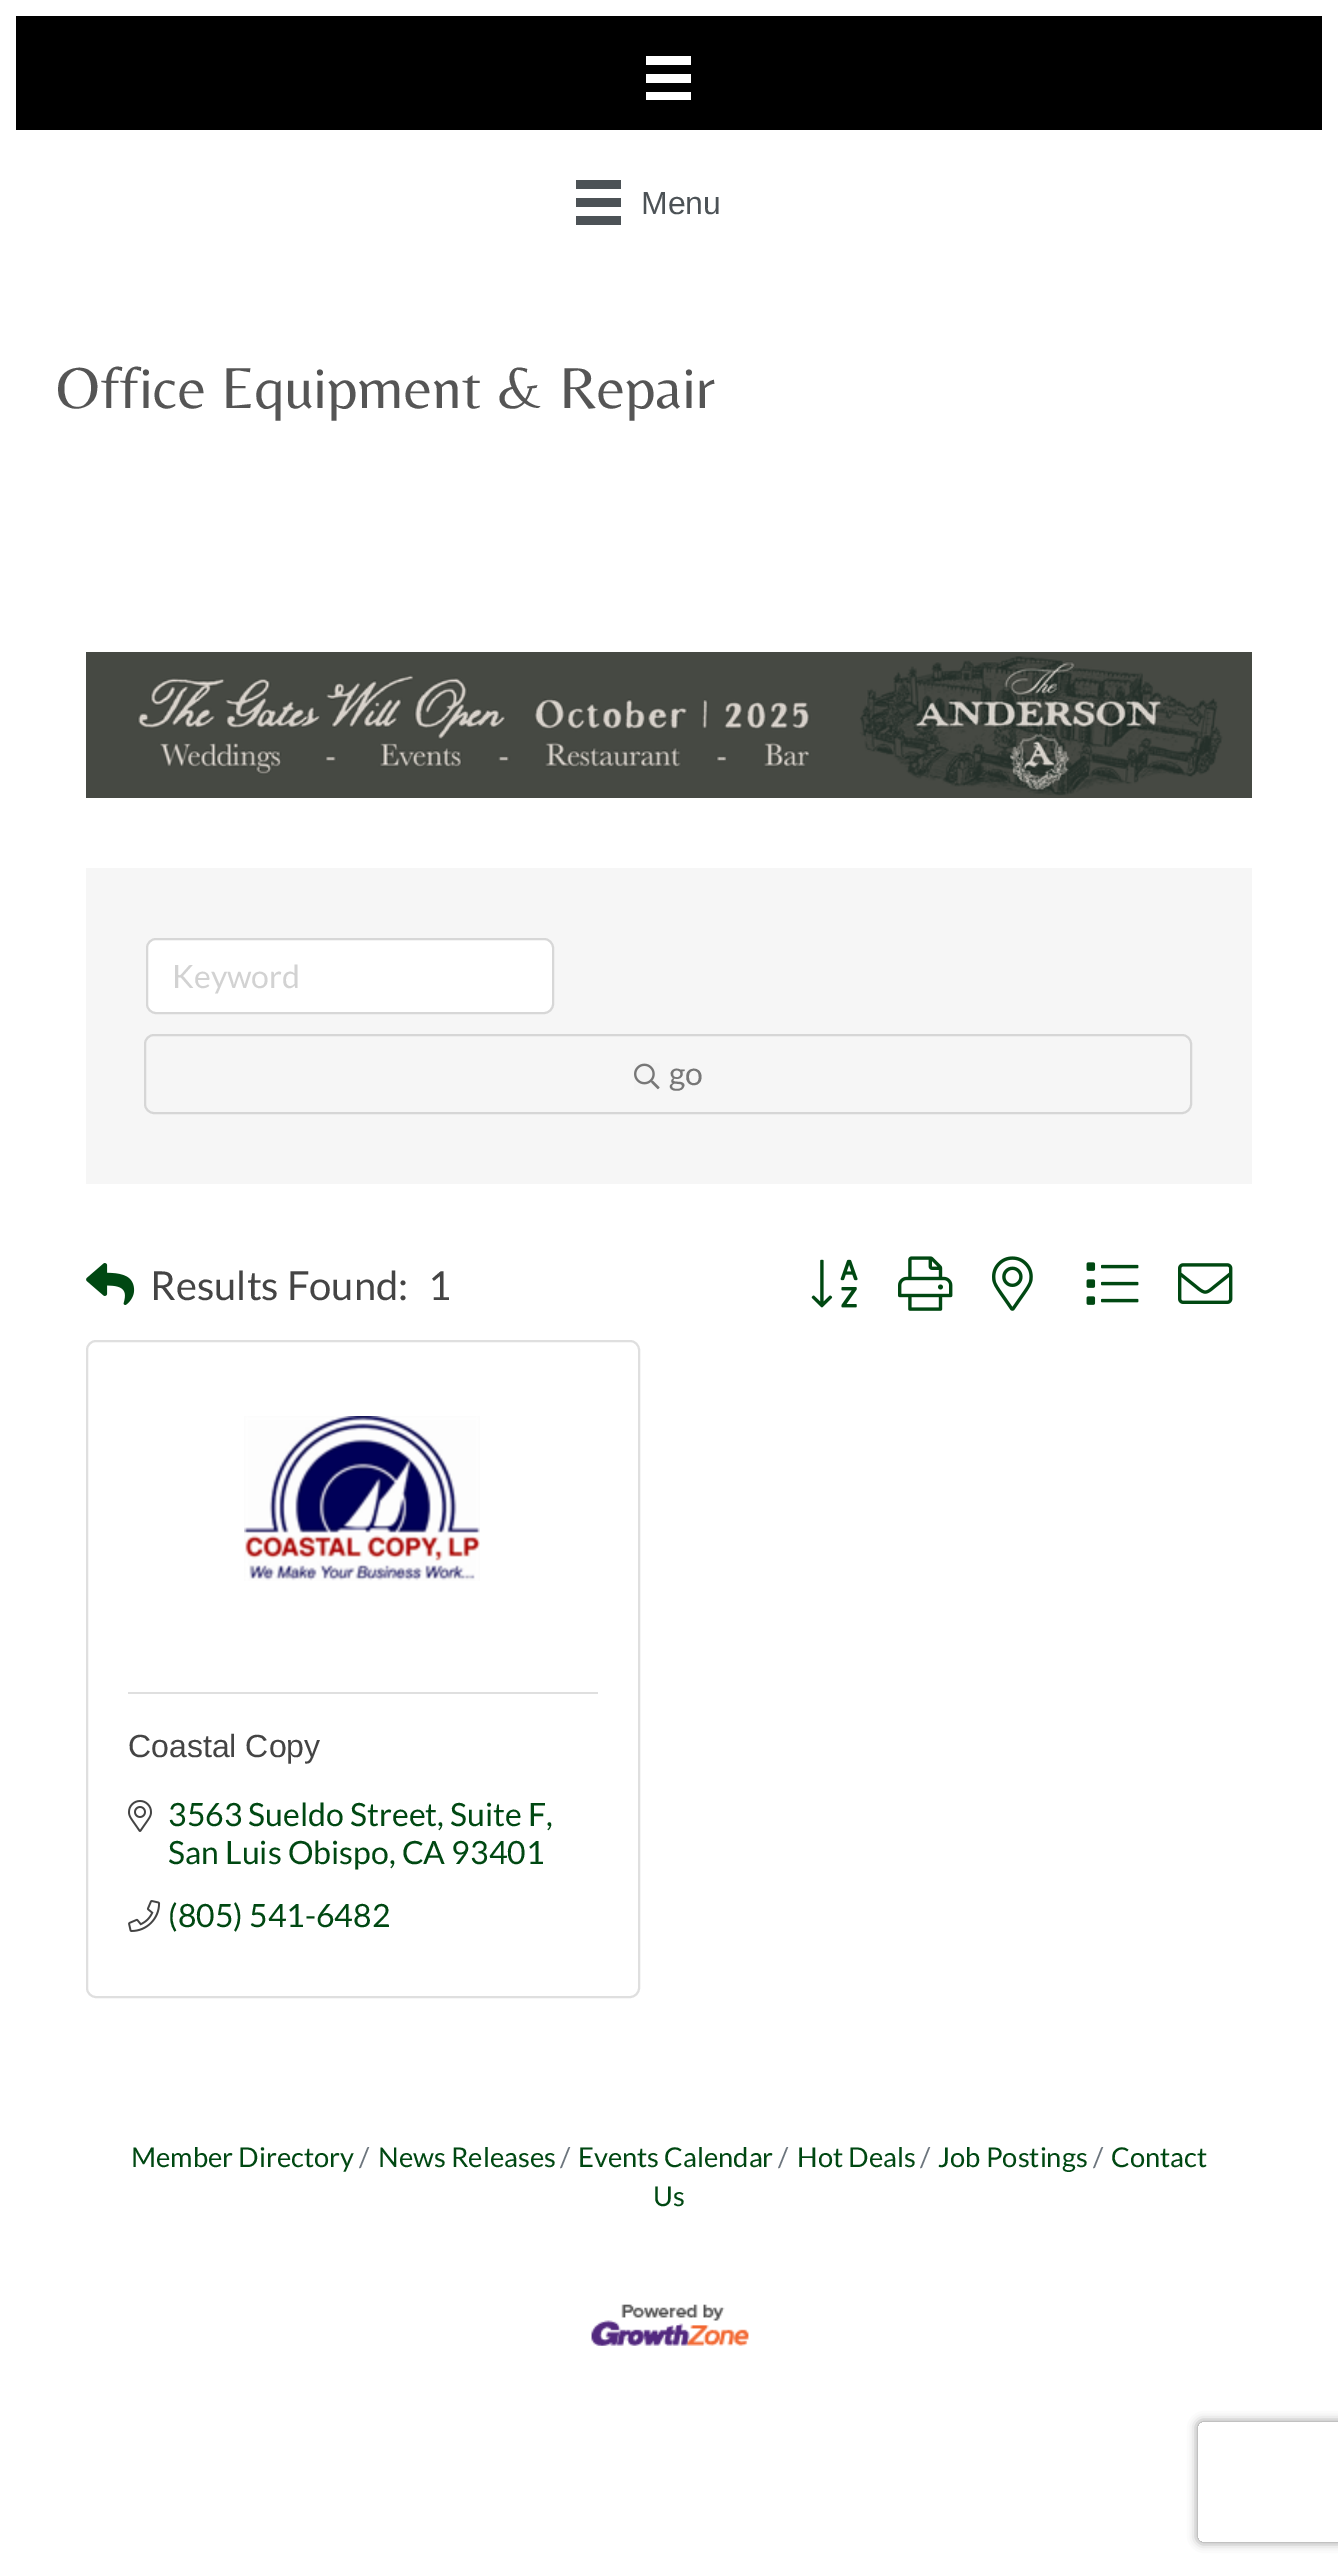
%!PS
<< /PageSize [1338 2569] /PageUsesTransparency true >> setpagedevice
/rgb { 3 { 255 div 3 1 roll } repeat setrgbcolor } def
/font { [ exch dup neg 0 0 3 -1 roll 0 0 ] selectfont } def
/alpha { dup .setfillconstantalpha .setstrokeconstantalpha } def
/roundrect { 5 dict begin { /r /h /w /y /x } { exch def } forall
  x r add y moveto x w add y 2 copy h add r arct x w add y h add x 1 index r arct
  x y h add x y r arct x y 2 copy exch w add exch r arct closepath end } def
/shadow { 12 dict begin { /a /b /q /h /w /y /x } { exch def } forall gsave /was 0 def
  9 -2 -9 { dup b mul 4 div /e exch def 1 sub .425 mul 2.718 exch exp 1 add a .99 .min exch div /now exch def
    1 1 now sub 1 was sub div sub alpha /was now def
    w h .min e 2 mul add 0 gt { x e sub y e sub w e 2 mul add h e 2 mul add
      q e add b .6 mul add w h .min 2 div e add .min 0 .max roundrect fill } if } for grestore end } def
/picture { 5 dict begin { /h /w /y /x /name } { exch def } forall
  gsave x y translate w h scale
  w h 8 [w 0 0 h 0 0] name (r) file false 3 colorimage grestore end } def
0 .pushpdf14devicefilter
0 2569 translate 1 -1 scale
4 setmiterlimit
255 255 255 rgb
0 0 1338 2569 rectfill
[
  [16 16 1306 114 0 0 0]
  [646 56 45 9 255 255 255]
  [646 74 45 9 255 255 255]
  [646 92 45 8 255 255 255]
  [576 180 45 9 76 82 86]
  [576 198 45 9 76 82 86]
  [576 216 45 9 76 82 86]
] { aload pop rgb rectfill } forall
(img/1.rgb) 86 652 1166 146 picture
246 246 246 rgb
86 868 1166 316 rectfill
255 255 255 rgb
147 939 406 74 9 roundrect gsave fill grestore
215 215 215 rgb
2 setlinewidth
stroke
214 214 214 rgb
145 1035 1046 78 9 roundrect stroke
(img/2.rgb) 634 1063 26 27 picture
(img/3.rgb) 86 1263 49 42 picture
(img/4.rgb) 811 1259 47 49 picture
(img/5.rgb) 898 1256 55 55 picture
(img/6.rgb) 992 1256 41 55 picture
(img/7.rgb) 1086 1262 53 43 picture
(img/8.rgb) 1178 1263 55 41 picture
223 223 223 rgb
87 1341 552 656 9 roundrect stroke
(img/9.rgb) 244 1416 236 165 picture
128 1692 470 2 rectfill
(img/10.rgb) 128 1800 24 32 picture
(img/11.rgb) 128 1900 33 32 picture
(img/12.rgb) 591 2304 158 42 picture
gsave
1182 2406 moveto 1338 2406 lineto 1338 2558 lineto 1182 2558 lineto closepath 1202 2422 moveto 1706 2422 lineto 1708 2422 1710 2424 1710 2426 curveto 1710 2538 lineto 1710 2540 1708 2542 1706 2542 curveto 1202 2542 lineto 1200 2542 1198 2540 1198 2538 curveto 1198 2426 lineto 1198 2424 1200 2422 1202 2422 curveto closepath eoclip newpath
128 128 128 rgb
1198 2422 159 120 4 5 1 shadow
grestore
/LiberationSans-Regular 32 font
76 82 86 rgb
641 214 moveto (Menu) show
/Belleza-Regular 60 font
85 85 85 rgb
56 408 moveto (Office Equipment & Repair) show
/Lato-Regular 32 font
210 210 210 rgb
172 988 moveto (Keyword) show
119 119 119 rgb
669 1085 moveto (go) show
/Lato-Regular 40 font
68 68 68 rgb
150 1300 moveto (Results Found:) show
428 1300 moveto (1) show
/LiberationSans-Regular 32 font
128 1757 moveto (Coastal Copy) show
/Lato-Regular 32 font
0 72 18 rgb
[
  [(3563 Sueldo Street, Suite F,) 168 1826]
  [(San Luis Obispo, CA 93401) 168 1864]
  [(\(805\) 541-6482) 168 1927]
] { aload pop moveto show } forall
/Lato-Regular 27.25 font
131 2167 moveto (Member Directory) show
108 117 125 rgb
359 2167 moveto (/) show
0 72 18 rgb
378 2167 moveto (News Releases) show
108 117 125 rgb
560 2167 moveto (/) show
0 72 18 rgb
578 2167 moveto (Events Calendar) show
108 117 125 rgb
1093 2167 moveto (/) show
0 72 18 rgb
1111 2167 moveto (Contact) show
653 2206 moveto (Us) show
108 117 125 rgb
778 2167 moveto (/) show
0 72 18 rgb
797 2167 moveto (Hot Deals) show
108 117 125 rgb
920 2167 moveto (/) show
0 72 18 rgb
938 2167 moveto (Job Postings) show
.poppdf14devicefilter showpage
